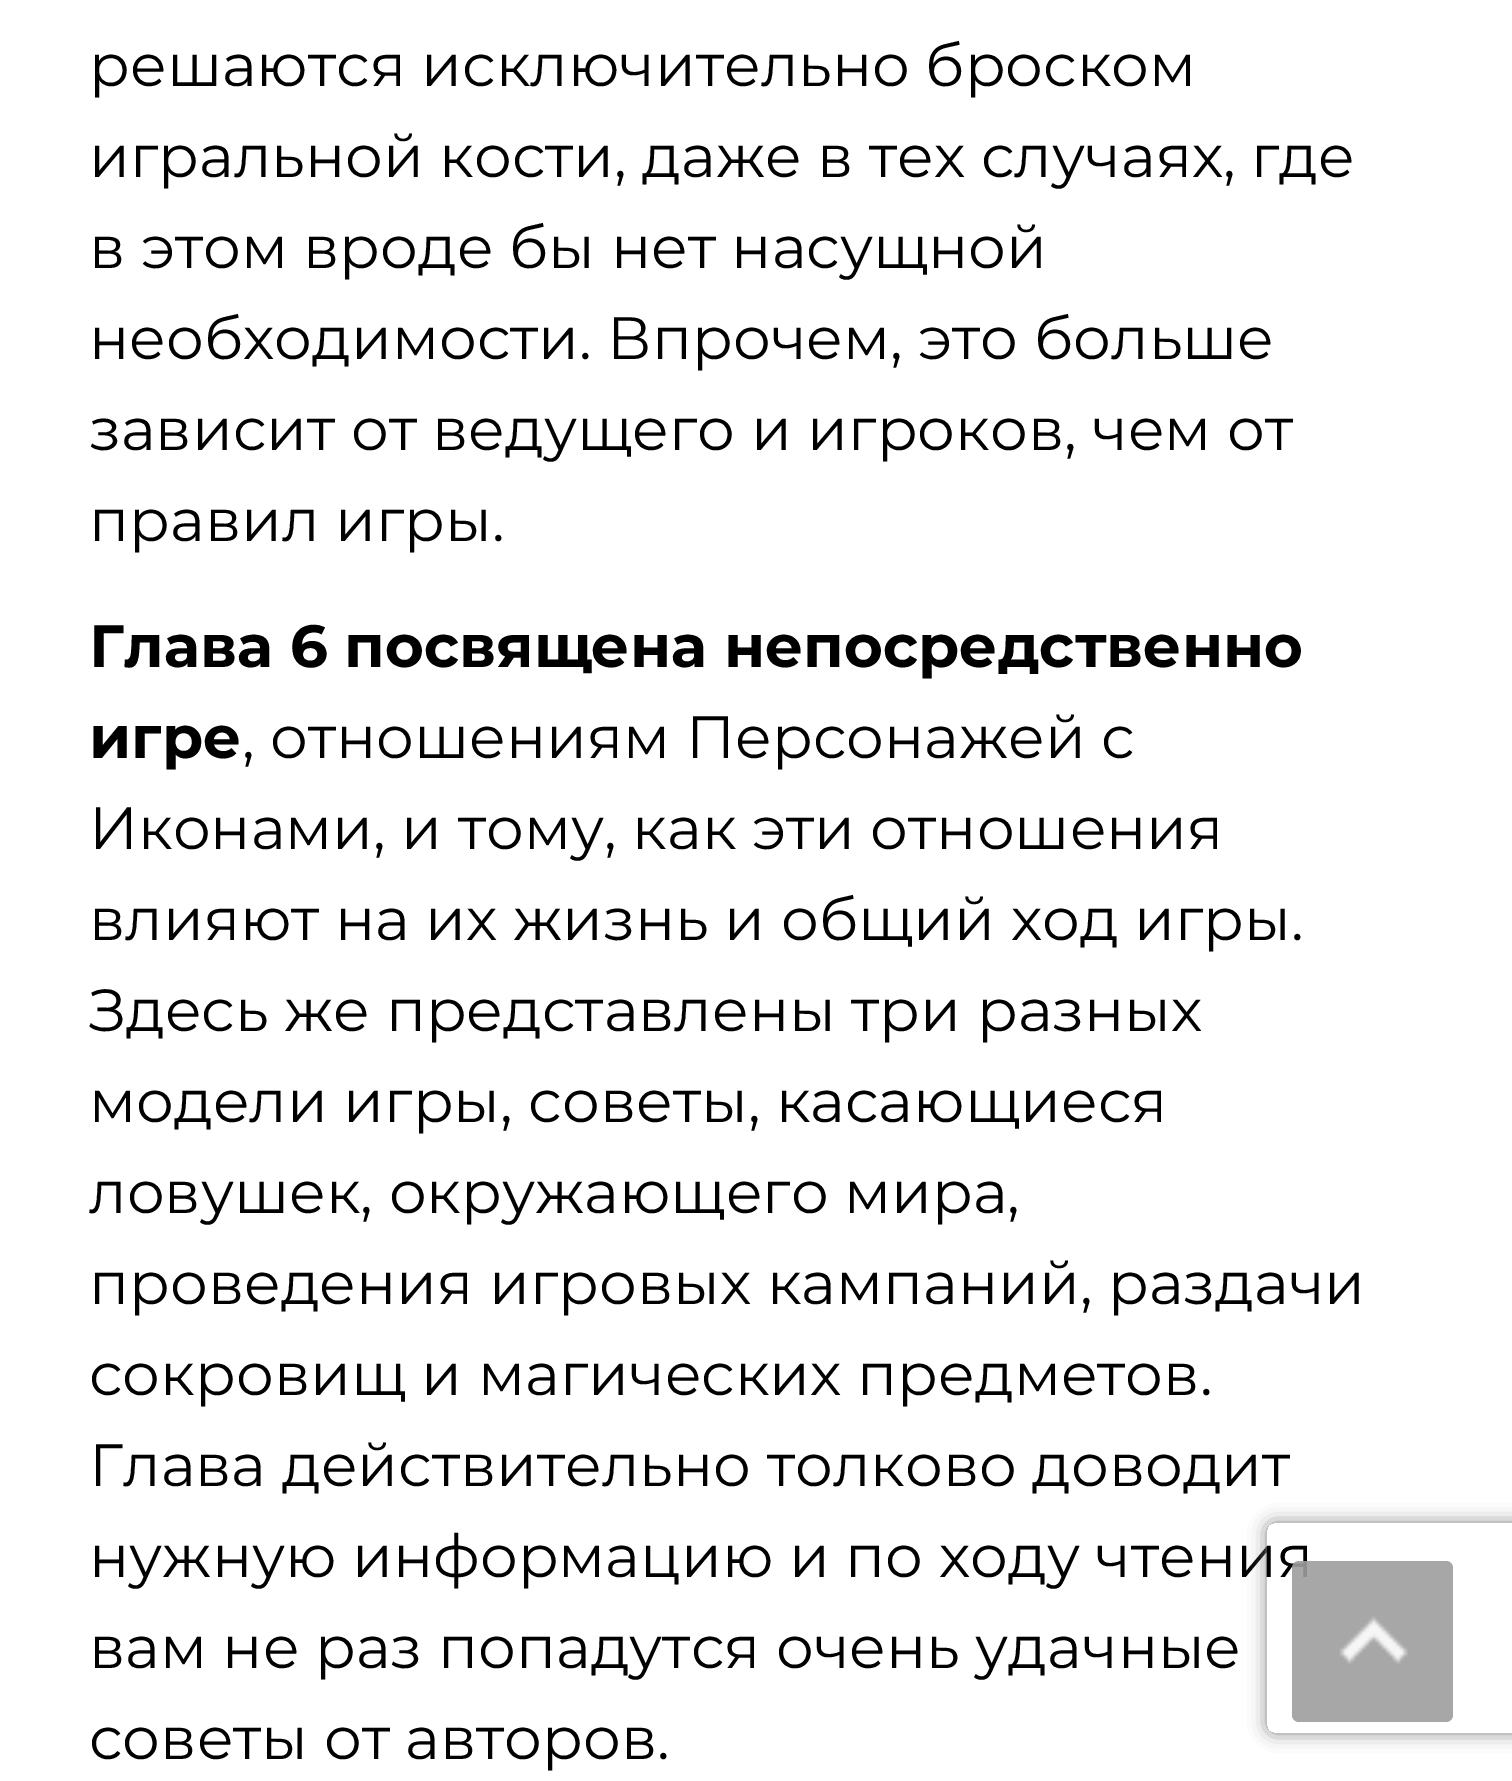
%!PS
<< /PageSize [1512 1781] /PageUsesTransparency true >> setpagedevice
/rgb { 3 { 255 div 3 1 roll } repeat setrgbcolor } def
/font { [ exch dup neg 0 0 3 -1 roll 0 0 ] selectfont } def
/alpha { dup .setfillconstantalpha .setstrokeconstantalpha } def
/roundrect { 5 dict begin { /r /h /w /y /x } { exch def } forall
  x r add y moveto x w add y 2 copy h add r arct x w add y h add x 1 index r arct
  x y h add x y r arct x y 2 copy exch w add exch r arct closepath end } def
/shadow { 12 dict begin { /a /b /q /h /w /y /x } { exch def } forall gsave /was 0 def
  9 -2 -9 { dup b mul 4 div /e exch def 1 sub .425 mul 2.718 exch exp 1 add a .99 .min exch div /now exch def
    1 1 now sub 1 was sub div sub alpha /was now def
    w h .min e 2 mul add 0 gt { x e sub y e sub w e 2 mul add h e 2 mul add
      q e add b .6 mul add w h .min 2 div e add .min 0 .max roundrect fill } if } for grestore end } def
/picture { 5 dict begin { /h /w /y /x /name } { exch def } forall
  gsave x y translate w h scale
  w h 8 [w 0 0 h 0 0] name (r) file false 3 colorimage grestore end } def
0 .pushpdf14devicefilter
0 1781 translate 1 -1 scale
4 setmiterlimit
255 255 255 rgb
0 0 1512 1781 rectfill
/Montserrat-Regular 59.5 font
0 0 0 rgb
[
  [(решаются исключительно броском) 89 86]
  [(игральной кости, даже в тех случаях, где) 89 177]
  [(в этом вроде бы нет насущной) 89 268]
  [(необходимости. Впрочем, это больше) 89 359]
  [(зависит от ведущего и игроков, чем от) 89 450]
  [(правил игры.) 89 541]
] { aload pop moveto show } forall
/Montserrat-Bold 59.5 font
89 667 moveto (Глава 6 посвящена непосредственно) show
89 758 moveto (игре) show
/Montserrat-Regular 59.5 font
[
  [(, отношениям Персонажей с) 242 758]
  [(Иконами, и тому, как эти отношения) 89 849]
  [(влияют на их жизнь и общий ход игры.) 89 940]
  [(Здесь же представлены три разных) 89 1031]
  [(модели игры, советы, касающиеся) 89 1122]
  [(ловушек, окружающего мира,) 89 1213]
  [(проведения игровых кампаний, раздачи) 89 1304]
  [(сокровищ и магических предметов.) 89 1395]
  [(Глава действительно толково доводит) 89 1486]
  [(нужную информацию и по ходу чтения) 89 1577]
  [(вам не раз попадутся очень удачные) 89 1668]
  [(советы от авторов.) 89 1759]
] { aload pop moveto show } forall
0.9 alpha
157 157 157 rgb
1292 1561 161 161 7 roundrect fill
1 alpha
(img/1.rgb) 1339 1616 69 48 picture
gsave
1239 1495 moveto 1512 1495 lineto 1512 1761 lineto 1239 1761 lineto closepath 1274 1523 moveto 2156 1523 lineto 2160 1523 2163 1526 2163 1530 curveto 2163 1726 lineto 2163 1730 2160 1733 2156 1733 curveto 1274 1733 lineto 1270 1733 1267 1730 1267 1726 curveto 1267 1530 lineto 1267 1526 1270 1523 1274 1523 curveto closepath eoclip newpath
128 128 128 rgb
1267 1523 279 210 7 9 1 shadow
grestore
.poppdf14devicefilter showpage
